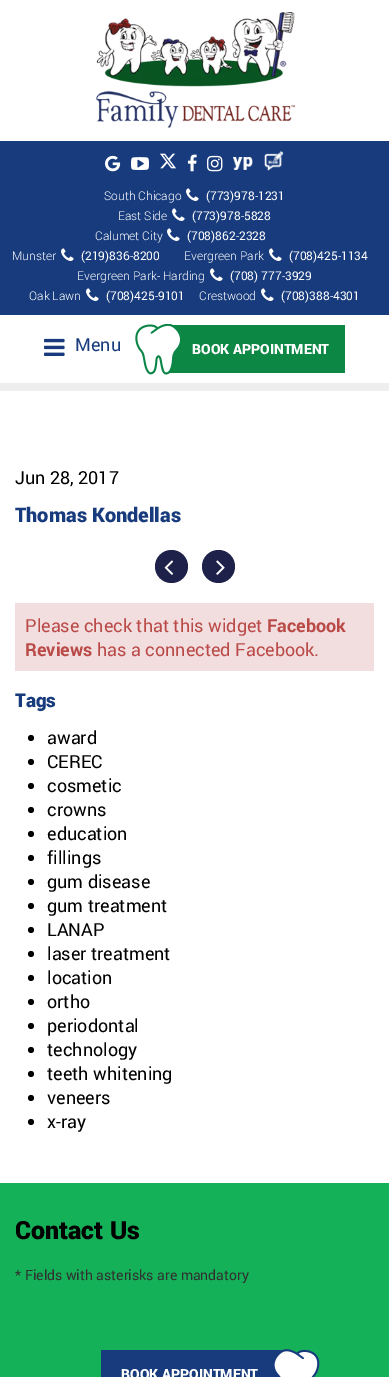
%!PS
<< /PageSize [389 1377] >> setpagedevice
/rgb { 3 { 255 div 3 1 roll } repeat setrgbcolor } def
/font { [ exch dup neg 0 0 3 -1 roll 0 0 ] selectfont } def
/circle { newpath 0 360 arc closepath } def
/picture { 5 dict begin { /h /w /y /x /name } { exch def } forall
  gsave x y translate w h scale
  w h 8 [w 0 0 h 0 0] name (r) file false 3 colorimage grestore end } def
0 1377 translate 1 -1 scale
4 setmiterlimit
255 255 255 rgb
0 0 389 1377 rectfill
(img/1.rgb) 96 12 199 116 picture
23 59 124 rgb
0 141 389 174 rectfill
(img/2.rgb) 105 155 16 17 picture
(img/3.rgb) 131 157 18 13 picture
(img/4.rgb) 160 153 16 16 picture
(img/5.rgb) 187 154 10 18 picture
(img/6.rgb) 207 155 16 17 picture
(img/7.rgb) 233 157 20 13 picture
(img/8.rgb) 264 151 20 20 picture
(img/9.rgb) 186 188 13 13 picture
(img/9.rgb) 172 208 13 13 picture
(img/9.rgb) 167 228 13 13 picture
(img/9.rgb) 61 248 13 13 picture
(img/9.rgb) 269 248 13 13 picture
(img/9.rgb) 210 268 13 13 picture
(img/9.rgb) 86 288 13 13 picture
(img/9.rgb) 261 288 13 13 picture
(img/10.rgb) 44 338 21 18 picture
13 135 68 rgb
167 325 178 48 rectfill
(img/11.rgb) 135 324 45 51 picture
238 238 238 rgb
0 383 389 8 rectfill
30 33 74 rgb
171.5 566.5 16.5 circle fill
(img/12.rgb) 164 560 10 15 picture
218.5 566.5 16.5 circle fill
(img/13.rgb) 216 560 9 15 picture
242 222 222 rgb
15 603 359 68 rectfill
0 0 0 rgb
31 738 3 circle fill
31 762 3 circle fill
31 786 3 circle fill
31 810 3 circle fill
31 834 3 circle fill
31 858 3 circle fill
31 882 3 circle fill
31 906 3 circle fill
31 930 3 circle fill
31 954 3 circle fill
31 978 3 circle fill
31 1002 3 circle fill
31 1026 3 circle fill
31 1050 3 circle fill
31 1074 3 circle fill
31 1098 3 circle fill
31 1122 3 circle fill
21 177 89 rgb
0 1183 389 194 rectfill
23 59 124 rgb
101 1350 187 27 rectfill
(img/14.rgb) 274 1349 46 28 picture
/Roboto-Light 12 font
255 255 255 rgb
104 200 moveto (South Chicago) show
/Roboto-Regular 12 font
206 200 moveto (\(773\)978-1231) show
/Roboto-Light 12 font
118 220 moveto (East Side) show
/Roboto-Regular 12 font
192 220 moveto (\(773\)978-5828) show
/Roboto-Light 12 font
95 240 moveto (Calumet City) show
/Roboto-Regular 12 font
187 240 moveto (\(708\)862-2328) show
/Roboto-Light 12 font
12 260 moveto (Munster) show
/Roboto-Regular 12 font
81 260 moveto (\(219\)836-8200) show
/Roboto-Light 12 font
184 260 moveto (Evergreen Park) show
/Roboto-Regular 12 font
289 260 moveto (\(708\)425-1134) show
/Roboto-Light 12 font
77 280 moveto (Evergreen Park- Harding) show
/Roboto-Regular 12 font
230 280 moveto (\(708\) 777-3929) show
/Roboto-Light 12 font
29 300 moveto (Oak Lawn) show
/Roboto-Regular 12 font
106 300 moveto (\(708\)425-9101) show
/Roboto-Light 12 font
199 300 moveto (Crestwood) show
/Roboto-Regular 12 font
281 300 moveto (\(708\)388-4301) show
/Roboto-Regular 18 font
23 59 124 rgb
75 351 moveto (Menu) show
/Roboto-Black 14 font
255 255 255 rgb
192 354 moveto (BOOK APPOINTMENT) show
/Roboto-Regular 18 font
0 0 0 rgb
15 484 moveto (Jun 28, 2017) show
/Roboto-Black 20 font
23 59 124 rgb
15 522 moveto (Thomas Kondellas) show
/Roboto-Regular 18 font
185 74 72 rgb
25 632 moveto (Please check that this widget) show
/Roboto-Bold 18 font
267 632 moveto (Facebook) show
25 656 moveto (Reviews) show
/Roboto-Regular 18 font
97 656 moveto (has a connected Facebook.) show
/Roboto-Black 19 font
23 59 124 rgb
15 707 moveto (Tags) show
/Roboto-Regular 18 font
0 0 0 rgb
[
  [(award) 47 744]
  [(CEREC) 47 768]
  [(cosmetic) 47 792]
  [(crowns) 47 816]
  [(education) 47 840]
  [(fillings) 47 864]
  [(gum disease) 47 888]
  [(gum treatment) 47 912]
  [(LANAP) 47 936]
  [(laser treatment) 47 960]
  [(location) 47 984]
  [(ortho) 47 1008]
  [(periodontal) 47 1032]
  [(technology) 47 1056]
  [(teeth whitening) 47 1080]
  [(veneers) 47 1104]
  [(x-ray) 47 1128]
] { aload pop moveto show } forall
/Roboto-Black 25 font
15 1239 moveto (Contact Us) show
/Roboto-Regular 14 font
48 48 48 rgb
15 1280 moveto (* Fields with asterisks are mandatory) show
/Roboto-Black 14 font
255 255 255 rgb
121 1379 moveto (BOOK APPOINTMENT) show
showpage
